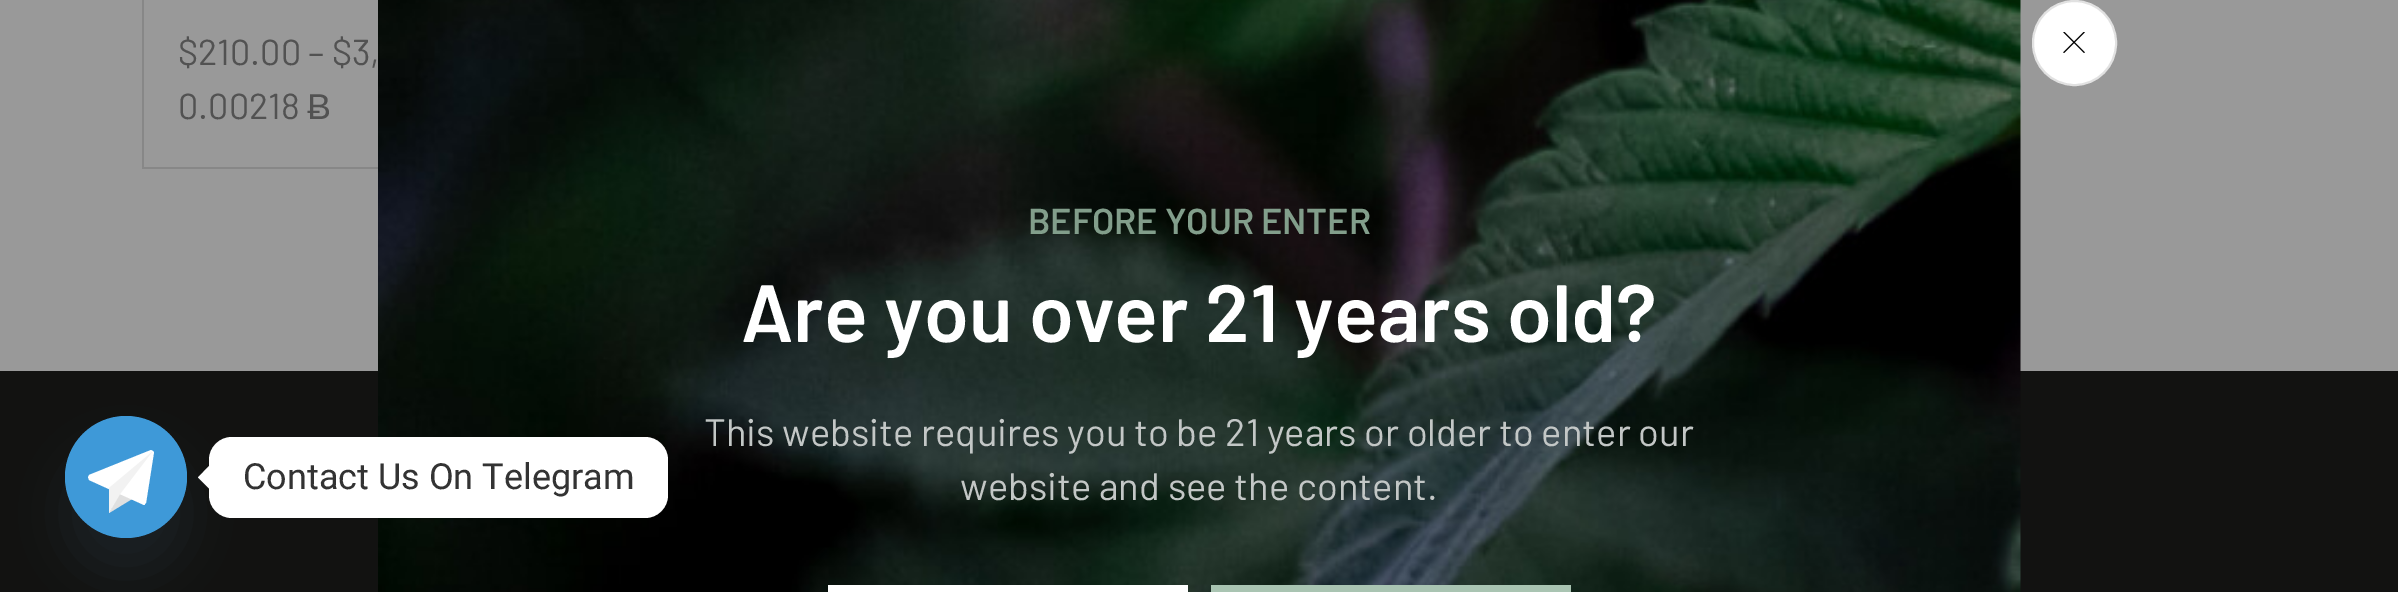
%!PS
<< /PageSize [2398 592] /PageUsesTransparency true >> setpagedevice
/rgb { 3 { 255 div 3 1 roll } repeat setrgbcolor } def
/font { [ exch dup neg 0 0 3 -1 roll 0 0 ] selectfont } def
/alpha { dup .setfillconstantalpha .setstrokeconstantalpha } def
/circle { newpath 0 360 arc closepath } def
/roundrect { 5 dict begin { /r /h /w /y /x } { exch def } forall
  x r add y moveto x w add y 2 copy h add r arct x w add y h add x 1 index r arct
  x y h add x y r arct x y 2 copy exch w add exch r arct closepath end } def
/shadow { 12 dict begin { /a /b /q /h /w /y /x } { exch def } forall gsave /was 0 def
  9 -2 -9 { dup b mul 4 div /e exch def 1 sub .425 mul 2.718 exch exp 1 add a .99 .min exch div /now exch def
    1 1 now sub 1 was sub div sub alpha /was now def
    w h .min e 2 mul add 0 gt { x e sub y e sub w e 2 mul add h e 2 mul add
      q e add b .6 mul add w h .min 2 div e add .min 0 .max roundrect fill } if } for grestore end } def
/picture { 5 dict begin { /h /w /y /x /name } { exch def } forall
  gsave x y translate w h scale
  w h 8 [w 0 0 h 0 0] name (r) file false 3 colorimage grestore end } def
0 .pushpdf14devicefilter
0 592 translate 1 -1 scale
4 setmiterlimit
18 18 17 rgb
0 0 2398 592 rectfill
[
  [0 0 2398 371 153 153 153]
  [142 0 2 169 135 135 135]
  [144 167 234 2 135 135 135]
] { aload pop rgb rectfill } forall
73 104 126 rgb
65 452 122 122 61 27 0.16 shadow
62 153 216 rgb
126 477 61 circle fill
126 477 60.5 circle fill
224 224 224 rgb
120 493 moveto 109 513 lineto 132 499 lineto closepath fill
255 255 255 rgb
153 451 moveto 151 450 lineto 89 475 lineto 89 476 88 477 88 477 curveto 88 478 89 479 89 480 curveto 144 505 lineto 144 505 145 505 145 504 curveto 146 503 lineto 154 452 lineto closepath fill
242 242 242 rgb
152 452 moveto 109 488 lineto 109 513 lineto 120 494 lineto closepath fill
(img/2.rgb) 378 0 1643 592 picture
255 255 255 rgb
209 437 459 81 23 roundrect fill
209 466 moveto 209 488.5 lineto 198 477.5 lineto closepath fill
2033 1 83 84 41.5 roundrect gsave fill grestore
225 225 225 rgb
2 setlinewidth
stroke
(img/1.rgb) 2063 32 22 21 picture
255 255 255 rgb
828 585 360 7 rectfill
169 196 178 rgb
1211 585 360 7 rectfill
/Barlow-Regular 36 font
82 82 82 rgb
178 65 moveto ($210.00 – $3,) show
178 119 moveto (0.00218) show
/LiberationSans-Regular 36 font
307 119 moveto (Ƀ) show
/Roboto-Regular 36 font
51 51 51 rgb
243 489 moveto (Contact Us On Telegram) show
/Barlow-SemiBold 36 font
130 158 139 rgb
1028 234 moveto (BEFORE YOUR ENTER) show
/Barlow-SemiBold 81 font
255 255 255 rgb
741 342 moveto (Are you over 21 years old?) show
/Barlow-Regular 38.25 font
195 199 198 rgb
704 446 moveto (This website requires you to be 21 years or older to enter our) show
960 500 moveto (website and see the content.) show
.poppdf14devicefilter showpage
